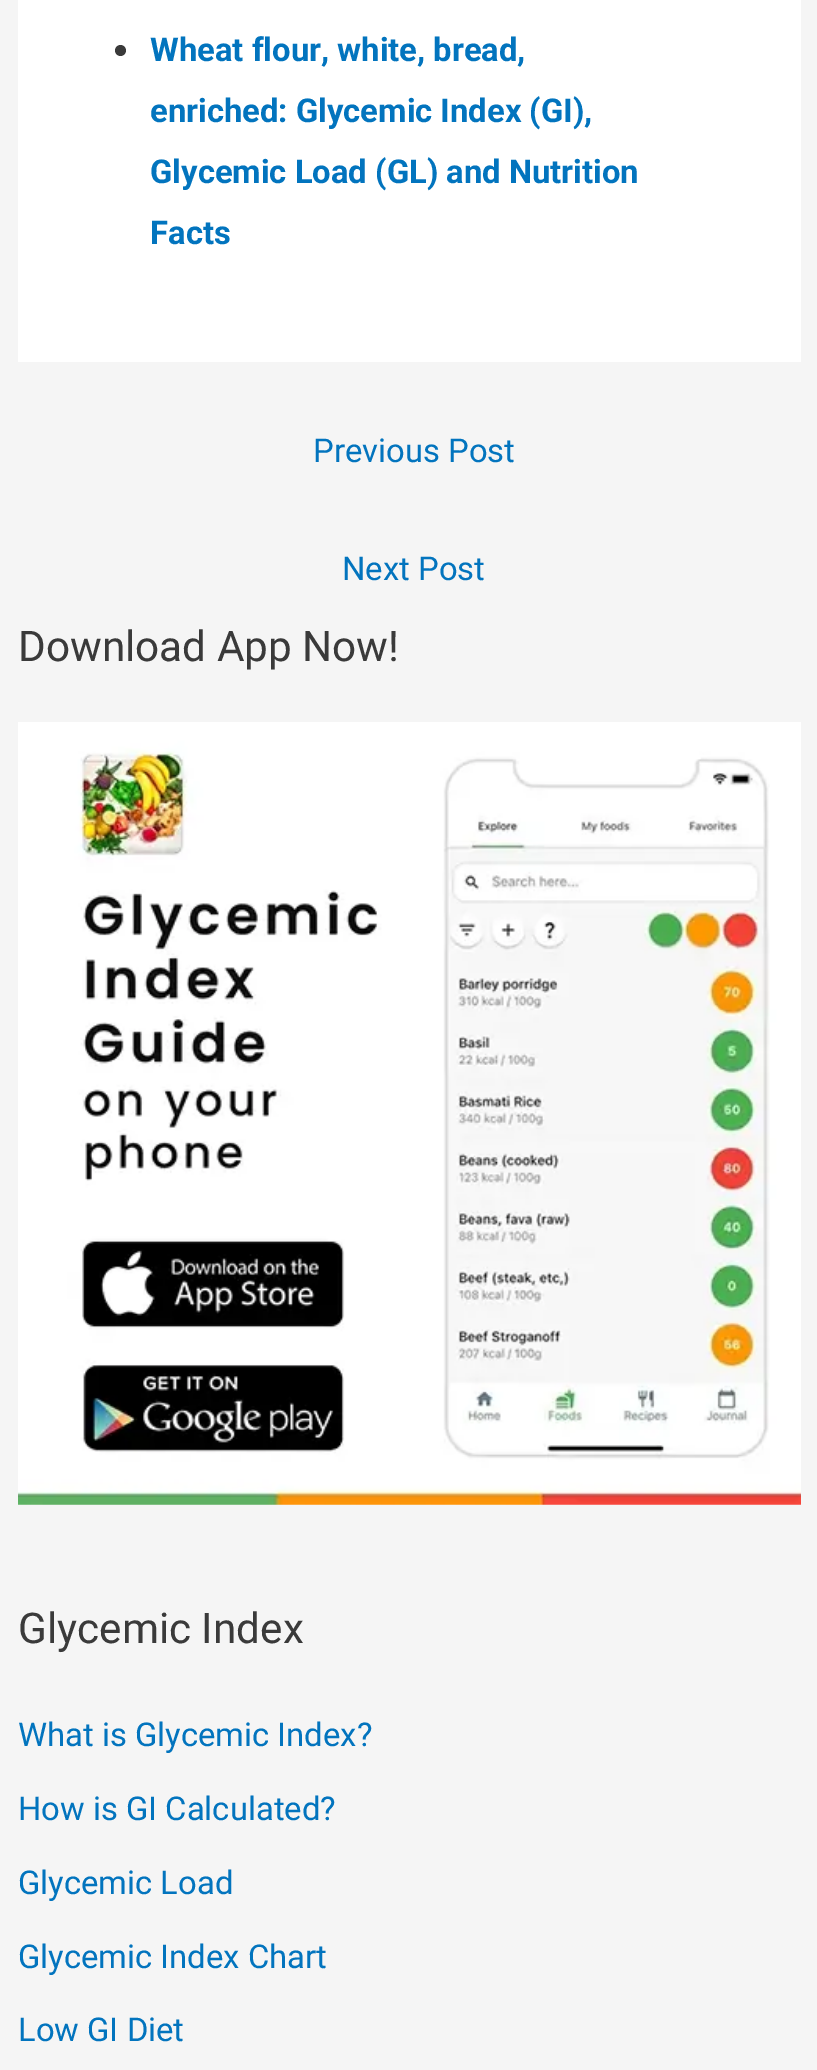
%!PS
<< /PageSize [817 2070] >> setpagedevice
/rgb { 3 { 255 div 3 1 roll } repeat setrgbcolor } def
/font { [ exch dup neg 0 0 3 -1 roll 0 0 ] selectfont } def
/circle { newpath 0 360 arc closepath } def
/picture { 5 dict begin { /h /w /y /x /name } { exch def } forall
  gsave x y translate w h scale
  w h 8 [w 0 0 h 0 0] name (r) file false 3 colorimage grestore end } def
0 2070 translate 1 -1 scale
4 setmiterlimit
245 245 245 rgb
0 0 817 2070 rectfill
255 255 255 rgb
18 0 783 362 rectfill
58 58 58 rgb
120.5 50.5 5.5 circle fill
(img/1.rgb) 18 722 783 783 picture
/Roboto-Bold 32.8 font
2 116 190 rgb
[
  [(Wheat flour, white, bread,) 150 61]
  [(enriched: Glycemic Index \(GI\),) 150 122]
  [(Glycemic Load \(GL\) and Nutrition) 150 183]
  [(Facts) 150 244]
] { aload pop moveto show } forall
/Roboto-Regular 32.8 font
313 462 moveto (Previous Post) show
342 580 moveto (Next Post) show
/Roboto-Regular 42.25 font
58 58 58 rgb
18 661 moveto (Download App Now!) show
18 1643 moveto (Glycemic Index) show
/Roboto-Regular 32.8 font
2 116 190 rgb
[
  [(What is Glycemic Index?) 18 1746]
  [(How is GI Calculated?) 18 1820]
  [(Glycemic Load) 18 1894]
  [(Glycemic Index Chart) 18 1968]
  [(Low GI Diet) 18 2041]
] { aload pop moveto show } forall
showpage
